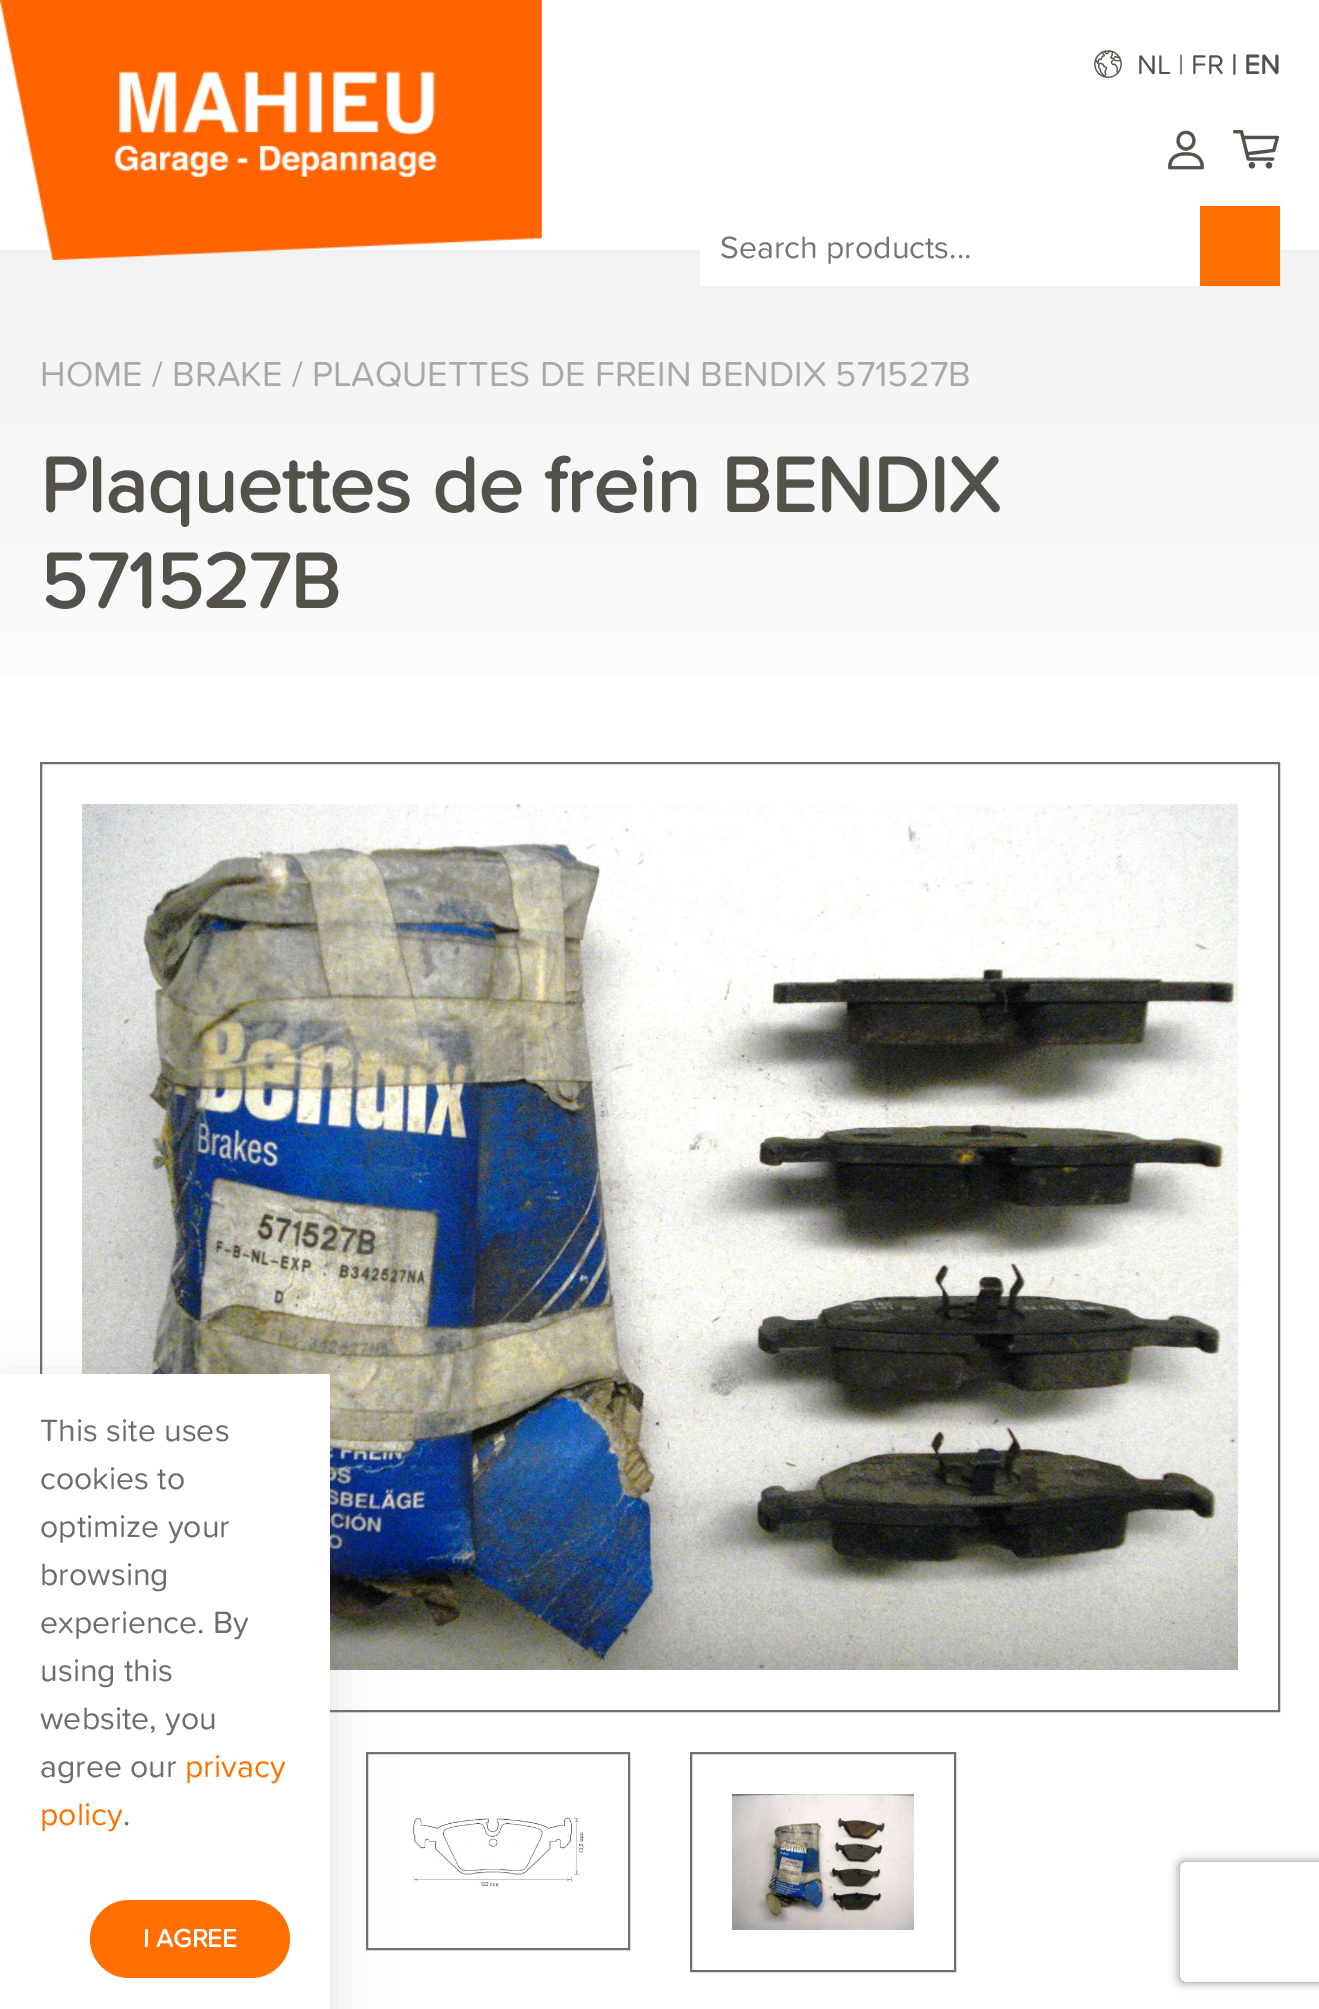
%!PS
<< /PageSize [1319 2009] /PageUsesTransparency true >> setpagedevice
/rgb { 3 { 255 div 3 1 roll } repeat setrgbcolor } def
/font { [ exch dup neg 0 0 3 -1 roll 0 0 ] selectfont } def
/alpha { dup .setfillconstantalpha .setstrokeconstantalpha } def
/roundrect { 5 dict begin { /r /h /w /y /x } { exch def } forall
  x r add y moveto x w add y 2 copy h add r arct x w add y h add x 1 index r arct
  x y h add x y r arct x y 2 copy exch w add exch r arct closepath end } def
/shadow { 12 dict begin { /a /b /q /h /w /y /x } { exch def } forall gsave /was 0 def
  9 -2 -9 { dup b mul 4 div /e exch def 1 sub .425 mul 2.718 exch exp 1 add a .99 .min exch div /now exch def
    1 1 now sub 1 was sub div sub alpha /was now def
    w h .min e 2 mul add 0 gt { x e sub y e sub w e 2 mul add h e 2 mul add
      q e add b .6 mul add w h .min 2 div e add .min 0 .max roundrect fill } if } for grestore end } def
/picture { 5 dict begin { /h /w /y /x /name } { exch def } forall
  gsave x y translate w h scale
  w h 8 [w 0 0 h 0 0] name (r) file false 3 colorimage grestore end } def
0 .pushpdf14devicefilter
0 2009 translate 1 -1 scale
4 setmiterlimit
255 255 255 rgb
0 0 1319 2009 rectfill
(img/1.rgb) 1094 50 28 28 picture
gsave 0 250 moveto 1319 250 lineto 1319 674 lineto 0 674 lineto closepath clip newpath
<< /ShadingType 2 /ColorSpace /DeviceRGB /Coords [660 250 660 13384] /Extend [true true] /Function << /FunctionType 3 /Domain [0 1] /Functions [<< /FunctionType 2 /Domain [0 1] /C0 [0.949 0.949 0.949] /C1 [1 1 1] /N 1 >> << /FunctionType 2 /Domain [0 1] /C0 [1 1 1] /C1 [1 1 1] /N 1 >>] /Bounds [0.04] /Encode [0 1 0 1] >> >> shfill grestore
(img/2.rgb) 0 0 542 260 picture
(img/3.rgb) 1168 130 36 40 picture
(img/4.rgb) 1233 130 47 39 picture
700 250 500 36 rectfill
255 112 0 rgb
1200 206 80 80 rectfill
112 112 112 rgb
2 setlinewidth
41 763 1238 948 rectstroke
(img/5.rgb) 82 804 1156 866 picture
367 1753 262 196 rectstroke
(img/6.rgb) 413 1817 172 70 picture
691 1753 264 218 rectstroke
(img/7.rgb) 732 1794 182 136 picture
100 100 111 rgb
0 1388 330 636 0 29 0.2 shadow
255 255 255 rgb
0 1374 330 635 rectfill
255 112 0 rgb
90 1900 200 78 39 roundrect fill
gsave
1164 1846 moveto 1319 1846 lineto 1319 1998 lineto 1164 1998 lineto closepath 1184 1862 moveto 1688 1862 lineto 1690 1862 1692 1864 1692 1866 curveto 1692 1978 lineto 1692 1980 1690 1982 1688 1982 curveto 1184 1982 lineto 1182 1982 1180 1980 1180 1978 curveto 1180 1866 lineto 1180 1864 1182 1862 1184 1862 curveto closepath eoclip newpath
128 128 128 rgb
1180 1862 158 120 4 5 1 shadow
grestore
/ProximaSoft-Regular 28 font
83 81 73 rgb
1137 74 moveto (NL | FR) show
/ProximaSoft-Bold 28 font
1231 74 moveto (| EN) show
/ProximaSoft-Regular 32 font
117 117 117 rgb
720 258 moveto (Search products...) show
/ProximaSoft-Regular 36 font
169 169 169 rgb
40 386 moveto (HOME / BRAKE / PLAQUETTES DE FREIN BENDIX 571527B) show
/ProximaSoft-Bold 80 font
83 81 73 rgb
40 512 moveto (Plaquettes de frein BENDIX) show
40 608 moveto (571527B) show
/ProximaSoft-Regular 32 font
107 108 108 rgb
[
  [(This site uses) 40 1441]
  [(cookies to) 40 1489]
  [(optimize your) 40 1537]
  [(browsing) 40 1585]
  [(experience. By) 40 1633]
  [(using this) 40 1681]
  [(website, you) 40 1729]
  [(agree our) 40 1777]
] { aload pop moveto show } forall
255 112 0 rgb
185 1777 moveto (privacy) show
40 1825 moveto (policy) show
107 108 108 rgb
123 1825 moveto (.) show
/ProximaSoft-Bold 26 font
255 255 255 rgb
143 1947 moveto (I AGREE) show
.poppdf14devicefilter showpage
